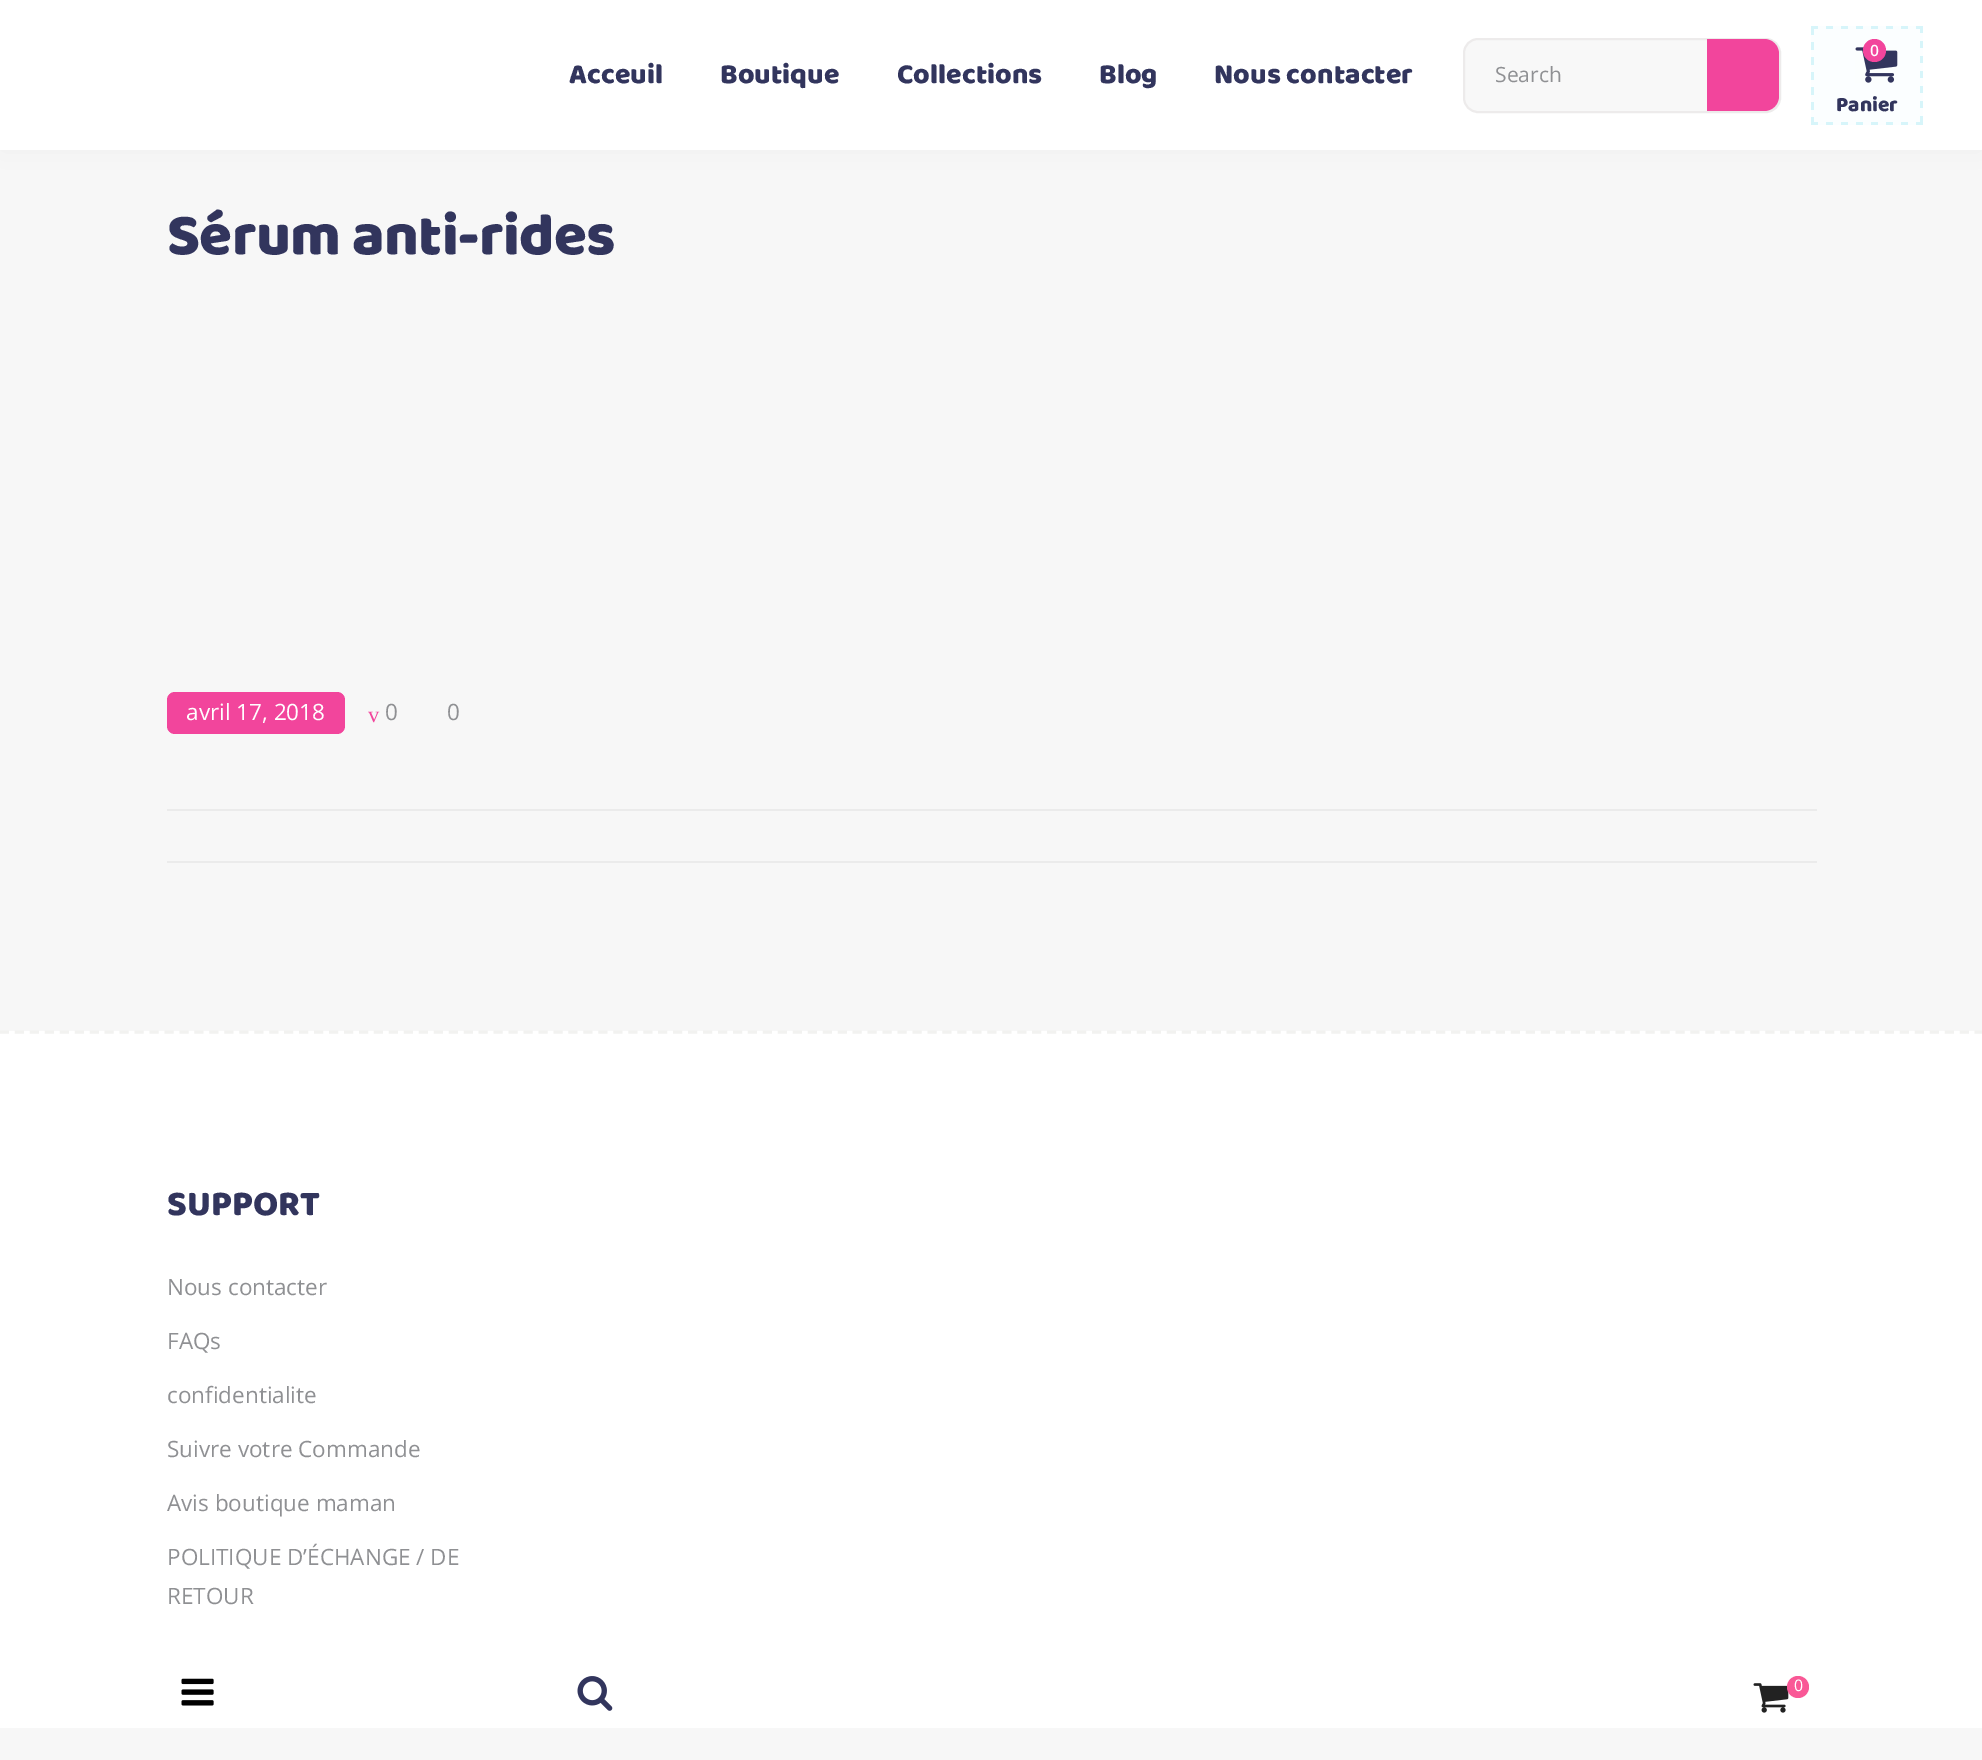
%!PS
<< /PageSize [1982 1760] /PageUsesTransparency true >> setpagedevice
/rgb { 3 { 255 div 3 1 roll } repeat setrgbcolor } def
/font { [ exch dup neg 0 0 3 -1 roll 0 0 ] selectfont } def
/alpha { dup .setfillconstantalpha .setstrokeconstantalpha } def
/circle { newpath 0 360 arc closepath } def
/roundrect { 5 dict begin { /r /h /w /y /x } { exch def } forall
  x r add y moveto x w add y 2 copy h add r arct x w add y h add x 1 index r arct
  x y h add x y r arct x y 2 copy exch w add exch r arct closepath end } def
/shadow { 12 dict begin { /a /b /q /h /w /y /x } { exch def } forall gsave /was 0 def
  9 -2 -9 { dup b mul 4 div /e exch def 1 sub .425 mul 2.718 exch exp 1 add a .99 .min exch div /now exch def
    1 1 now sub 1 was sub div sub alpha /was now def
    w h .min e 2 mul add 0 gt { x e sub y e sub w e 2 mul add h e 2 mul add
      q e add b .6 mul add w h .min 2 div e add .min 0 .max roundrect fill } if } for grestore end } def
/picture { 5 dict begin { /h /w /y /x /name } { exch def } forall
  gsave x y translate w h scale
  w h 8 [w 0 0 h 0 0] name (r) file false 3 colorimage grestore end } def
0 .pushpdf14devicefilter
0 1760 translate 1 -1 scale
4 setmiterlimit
247 247 247 rgb
0 0 1982 1760 rectfill
149 136 151 rgb
0 0 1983 150 0 16 0.09 shadow
255 255 255 rgb
0 0 1982 150 rectfill
251 254 255 rgb
1811 26 112 99 rectfill
248 248 248 rgb
1464 39 316 73 14 roundrect gsave fill grestore
237 235 235 rgb
2 setlinewidth
stroke
242 69 156 rgb
1707 39 moveto 1764 39 lineto 1772.5 39 1779 45.5 1779 54 curveto 1779 96 lineto 1779 104.5 1772.5 111 1764 111 curveto 1707 111 lineto closepath fill
(img/1.rgb) 1855 47 43 36 picture
1874.5 50.5 11.5 circle fill
[
  [1920 26 3 7 215 245 250]
  [1920 41 3 7 215 245 250]
  [1920 56 3 7 215 245 250]
  [1920 71 3 7 215 245 250]
  [1920 86 3 7 215 245 250]
  [1920 101 3 7 215 245 250]
  [1920 116 3 7 215 245 250]
  [1811 27 3 8 215 245 250]
  [1811 42 3 8 215 245 250]
  [1811 57 3 8 215 245 250]
  [1811 72 3 8 215 245 250]
  [1811 87 3 8 215 245 250]
  [1811 102 3 8 215 245 250]
  [1811 117 3 8 215 245 250]
  [1811 122 7 3 215 245 250]
  [1826 122 7 3 215 245 250]
  [1841 122 7 3 215 245 250]
  [1856 122 7 3 215 245 250]
  [1871 122 7 3 215 245 250]
  [1886 122 7 3 215 245 250]
  [1901 122 7 3 215 245 250]
  [1916 122 7 3 215 245 250]
  [1811 26 7 3 215 245 250]
  [1826 26 7 3 215 245 250]
  [1841 26 7 3 215 245 250]
  [1856 26 7 3 215 245 250]
  [1871 26 7 3 215 245 250]
  [1886 26 7 3 215 245 250]
  [1901 26 7 3 215 245 250]
  [1916 26 7 3 215 245 250]
] { aload pop rgb rectfill } forall
242 69 156 rgb
167 692 178 42 8 roundrect fill
[
  [167 809 1650 2 235 235 235]
  [167 861 1650 2 235 235 235]
  [0 1031 1982 697 255 255 255]
] { aload pop rgb rectfill } forall
242 242 240 rgb
3 setlinewidth
[9 5.96] 0 setdash
0 1032 moveto 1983 1032 lineto stroke
(img/2.rgb) 181 1678 33 28 picture
(img/3.rgb) 577 1676 36 35 picture
(img/4.rgb) 1753 1683 36 30 picture
249 88 150 rgb
1798 1687 11 circle fill
/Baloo-Regular 28.5 font
50 53 93 rgb
[
  [(Acceuil) 569 83]
  [(Boutique) 720 83]
  [(Collections) 897 83]
  [(Blog) 1099 83]
  [(Nous contacter) 1214 83]
] { aload pop moveto show } forall
/OpenSans-Regular 21 font
143 144 147 rgb
1495 82 moveto (Search) show
/OpenSans-Bold 15 font
255 255 255 rgb
1870 56 moveto (0) show
/Baloo-Regular 21 font
50 53 93 rgb
1836 111 moveto (Panier) show
/Baloo-Regular 60 font
167 254 moveto -0.6 0 (Sérum anti-rides) ashow
/OpenSans-Regular 22.5 font
255 255 255 rgb
186 720 moveto (avril 17, 2018) show
/LiberationSerif-Regular 22.5 font
242 69 156 rgb
368 722 moveto (v) show
/OpenSans-Regular 22.5 font
143 144 147 rgb
385 720 moveto (0) show
447 720 moveto (0) show
/Baloo-Regular 36 font
50 53 93 rgb
167 1215 moveto (SUPPORT) show
/OpenSans-Regular 22.5 font
143 144 147 rgb
[
  [(Nous contacter) 167 1295]
  [(FAQs) 167 1349]
  [(confidentialite) 167 1403]
  [(Suivre votre Commande) 167 1457]
  [(Avis boutique maman) 167 1511]
  [(POLITIQUE D’ÉCHANGE / DE) 167 1565]
  [(RETOUR) 167 1604]
] { aload pop moveto show } forall
/OpenSans-Regular 16 font
255 255 255 rgb
1794 1691 moveto (0) show
.poppdf14devicefilter showpage
